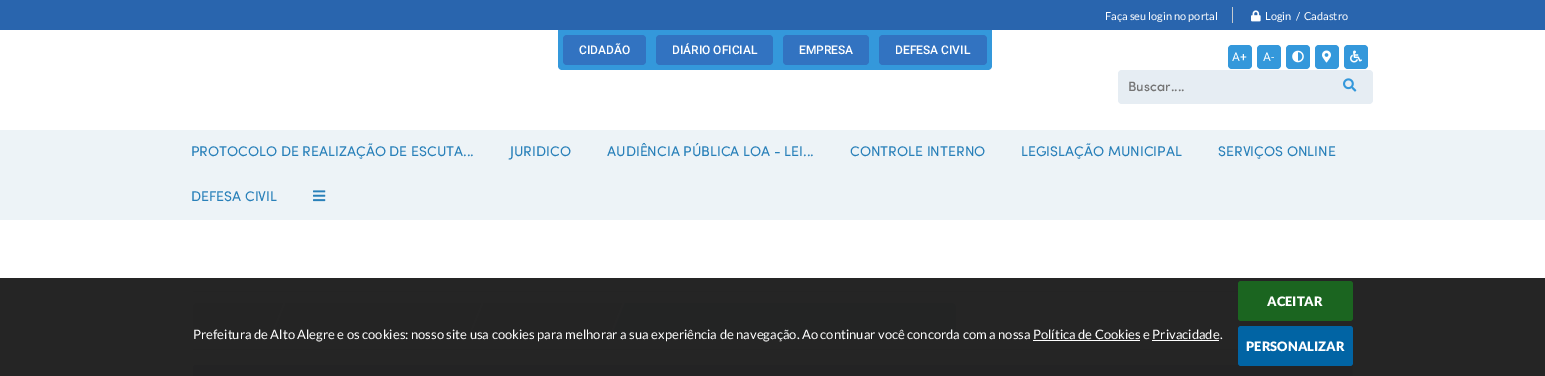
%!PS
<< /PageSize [1545 376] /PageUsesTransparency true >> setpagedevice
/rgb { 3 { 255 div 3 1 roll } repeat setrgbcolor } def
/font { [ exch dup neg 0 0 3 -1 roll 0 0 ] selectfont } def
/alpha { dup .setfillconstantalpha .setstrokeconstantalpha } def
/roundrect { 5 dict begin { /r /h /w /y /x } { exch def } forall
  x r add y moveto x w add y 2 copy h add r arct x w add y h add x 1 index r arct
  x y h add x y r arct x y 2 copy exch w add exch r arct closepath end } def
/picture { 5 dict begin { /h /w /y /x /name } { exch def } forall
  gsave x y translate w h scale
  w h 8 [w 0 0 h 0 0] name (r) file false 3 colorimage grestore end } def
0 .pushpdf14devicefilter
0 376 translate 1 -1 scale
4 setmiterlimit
255 255 255 rgb
0 0 1545 376 rectfill
41 101 174 rgb
0 0 1545 30 rectfill
196 202 207 rgb
1232 7 1 16 0.5 roundrect fill
(img/1.rgb) 1251 10 10 12 picture
52 152 219 rgb
558 30 moveto 992 30 lineto 992 66 lineto 992 68 990 70 988 70 curveto 562 70 lineto 560 70 558 68 558 66 curveto closepath fill
50 115 193 rgb
563 35 83 30 4 roundrect fill
656 35 117 30 4 roundrect fill
783 35 86 30 4 roundrect fill
879 35 108 30 4 roundrect fill
52 152 219 rgb
1228 45 24 24 4 roundrect fill
1257 45 24 24 4 roundrect fill
1286 45 24 24 4 roundrect fill
(img/2.rgb) 1292 50 12 13 picture
1315 45 24 24 4 roundrect fill
(img/3.rgb) 1322 50 9 13 picture
1344 45 24 24 4 roundrect fill
(img/4.rgb) 1350 50 12 13 picture
230 237 243 rgb
1118 70 255 34 4 roundrect fill
(img/5.rgb) 1343 78 14 14 picture
237 243 247 rgb
0 130 1545 90 rectfill
(img/6.rgb) 313 190 13 12 picture
233 233 233 rgb
193 291 1045 1 rectfill
193 349 1045 1 rectfill
233 234 236 rgb
198 303 moveto 269 303 lineto 269 338 lineto 198 338 lineto 195 338 193 336 193 333 curveto 193 308 lineto 193 305 195 303 198 303 curveto closepath fill
269 303 moveto 283 303 lineto 269 338 lineto closepath fill
286 303 181 35 rectfill
286 338 moveto 272 338 lineto 286 303 lineto closepath fill
467 303 moveto 481 303 lineto 467 338 lineto closepath fill
484 303 124 35 rectfill
484 338 moveto 470 338 lineto 484 303 lineto closepath fill
608 303 moveto 622 303 lineto 608 338 lineto closepath fill
212 232 249 rgb
625 303 moveto 951 303 lineto 954 303 956 305 956 308 curveto 956 333 lineto 956 336 954 338 951 338 curveto 625 338 lineto closepath fill
625 338 moveto 611 338 lineto 625 303 lineto closepath fill
gsave 197 365 moveto 1349 365 lineto 1351 365 1353 367 1353 369 curveto 1353 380 lineto 193 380 lineto 193 369 lineto 193 367 195 365 197 365 curveto closepath clip newpath
<< /ShadingType 2 /ColorSpace /DeviceRGB /Coords [193 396 1353 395] /Extend [true true] /Function << /FunctionType 2 /Domain [0 1] /C0 [0.886 0.89 0.914] /C1 [0.906 0.906 0.937] /N 1 >> >> shfill grestore
0.95 alpha
[
  [0 278 1545 98 25 25 25]
] { aload pop rgb rectfill } forall
1 alpha
[
  [1033 340 107 1 255 255 255]
  [1152 340 67 1 255 255 255]
] { aload pop rgb rectfill } forall
27 101 32 rgb
1238 281 115 40 3 roundrect fill
1 100 164 rgb
1238 326 115 40 3 roundrect fill
/Lato-Regular 11 font
255 255 255 rgb
1105 20 moveto (Faça seu login no portal) show
1265 20 moveto (Login  /  Cadastro) show
/Roboto-Medium 12 font
[
  [(CIDADÃO) 579 54]
  [(DIÁRIO OFICIAL) 672 54]
  [(EMPRESA) 799 54]
  [(DEFESA CIVIL) 895 54]
] { aload pop moveto show } forall
/Roboto-Regular 12 font
1232 61 moveto (A+) show
1263 61 moveto (A-) show
/Sofia-Medium 13.5 font
117 117 117 rgb
1128 91 moveto (Buscar....) show
/Sofia-Regular 14 font
41 128 185 rgb
[
  [(PROTOCOLO DE REALIZAÇÃO DE ESCUTA...) 191 156]
  [(JURIDICO) 510 156]
  [(AUDIÊNCIA PÚBLICA LOA - LEI...) 607 156]
  [(CONTROLE INTERNO) 850 156]
  [(LEGISLAÇÃO MUNICIPAL) 1021 156]
  [(SERVIÇOS ONLINE) 1218 156]
  [(DEFESA CIVIL) 191 201]
] { aload pop moveto show } forall
/Lato-Regular 13 font
255 255 255 rgb
193 339 moveto (Prefeitura de Alto Alegre e os cookies: nosso site usa cookies para melhorar a sua experiência de navegação. Ao continuar você concorda com a nossa Política de Cookies e Privacidade.) show
/Lato-Black 13 font
1267 306 moveto (ACEITAR) show
1246 351 moveto (PERSONALIZAR) show
.poppdf14devicefilter showpage
